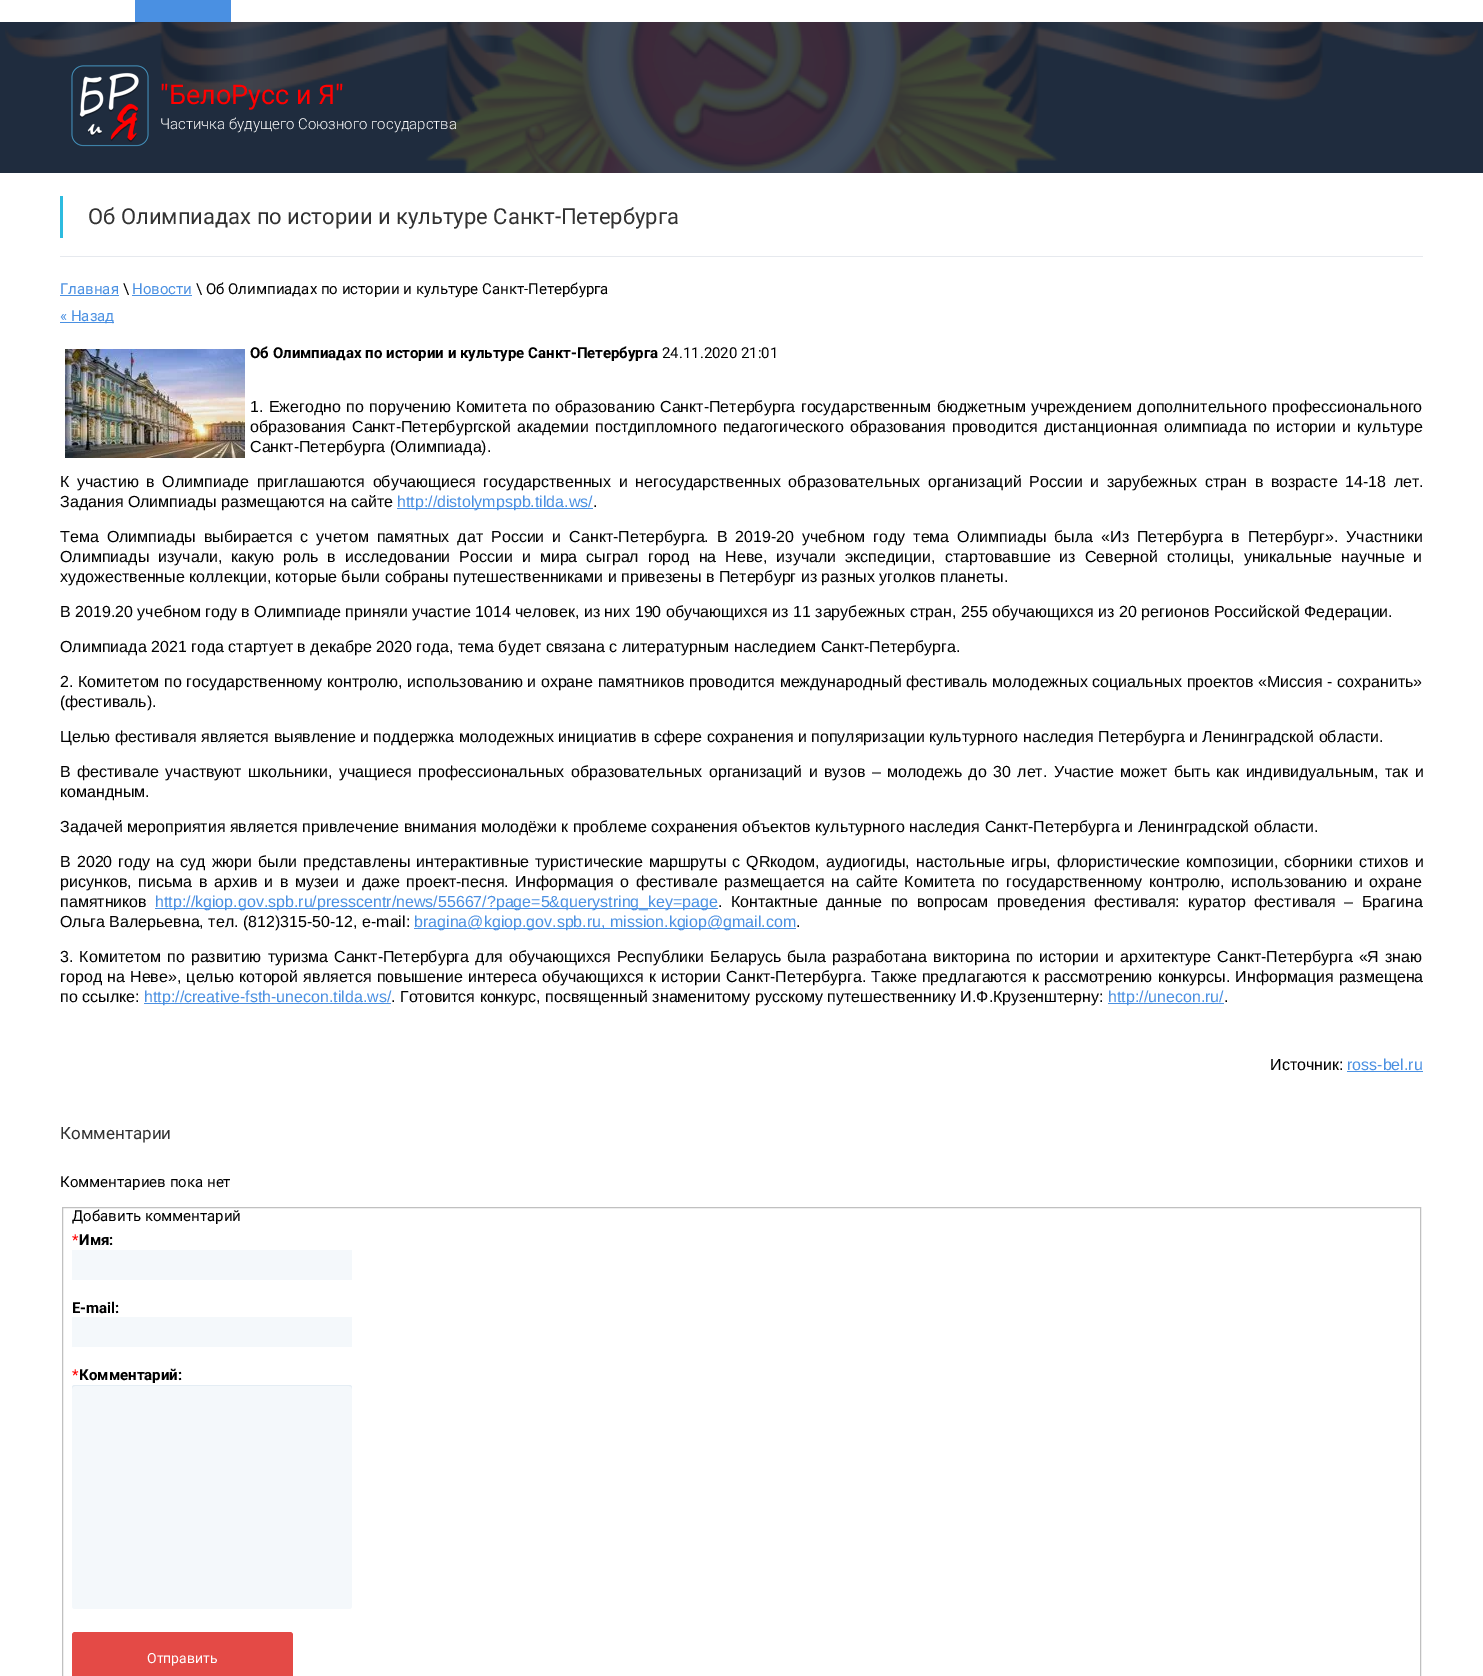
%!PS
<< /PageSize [1483 1676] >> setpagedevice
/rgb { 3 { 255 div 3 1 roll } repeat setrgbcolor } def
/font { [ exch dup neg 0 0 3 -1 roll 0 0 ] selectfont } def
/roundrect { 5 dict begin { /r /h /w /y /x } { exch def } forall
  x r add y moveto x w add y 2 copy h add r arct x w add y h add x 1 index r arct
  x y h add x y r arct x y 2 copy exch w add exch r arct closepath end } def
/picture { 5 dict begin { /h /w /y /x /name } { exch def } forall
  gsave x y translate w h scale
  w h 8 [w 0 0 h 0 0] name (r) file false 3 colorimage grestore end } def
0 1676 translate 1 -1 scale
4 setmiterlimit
255 255 255 rgb
0 0 1483 1676 rectfill
31 44 62 rgb
0 22 1483 151 rectfill
74 144 226 rgb
135 0 96 22 rectfill
(img/1.rgb) 5 22 1473 151 picture
(img/2.rgb) 71 65 78 82 picture
[
  [60 256 1363 1 230 233 238]
  [60 196 3 42 45 187 223]
  [60 295 59 1 74 144 226]
  [132 295 60 1 74 144 226]
  [60 322 54 1 74 144 226]
] { aload pop rgb rectfill } forall
(img/3.rgb) 65 349 180 109 picture
[
  [397 508 196 1 74 144 226]
  [155 908 563 1 74 144 226]
  [414 928 382 1 74 144 226]
  [144 1003 247 1 74 144 226]
  [1108 1003 116 1 74 144 226]
  [1347 1071 76 1 74 144 226]
] { aload pop rgb rectfill } forall
192 192 192 rgb
62.5 1207.5 1358 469 rectstroke
244 248 251 rgb
72 1250 280 30 rectfill
72 1317 280 30 rectfill
72 1385 280 224 3 roundrect fill
228 237 244 rgb
75 1386 moveto 349 1386 lineto 351 1386 352 1387 352 1389 curveto 352 1388 lineto 352 1386 351 1385 349 1385 curveto 75 1385 lineto 73 1385 72 1386 72 1388 curveto 72 1389 lineto 72 1387 73 1386 75 1386 curveto closepath fill
228 74 70 rgb
72 1632 221 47 3 roundrect fill
/roboto-Regular 27 font
255 0 0 rgb
160 104 moveto ("БелоРусс и Я") show
/Roboto-Light 15 font
255 255 255 rgb
160 129 moveto (Частичка будущего Союзного государства) show
/roboto-Regular 22 font
50 50 50 rgb
88 224 moveto (Об Олимпиадах по истории и культуре Санкт-Петербурга) show
/roboto-Regular 15 font
74 144 226 rgb
60 294 moveto (Главная) show
0 0 0 rgb
123 294 moveto (\\) show
74 144 226 rgb
132 294 moveto (Новости) show
0 0 0 rgb
196 294 moveto (\\ Об Олимпиадах по истории и культуре Санкт-Петербурга) show
74 144 226 rgb
60 321 moveto (« Назад) show
/roboto-Bold 15 font
0 0 0 rgb
250 358 moveto (Об Олимпиадах по истории и культуре Санкт-Петербурга) show
/roboto-Regular 15 font
662 358 moveto (24.11.2020 21:01) show
/LiberationSans-Regular 16 font
250 412 moveto 1 0 32 (1. Ежегодно по поручению Комитета по образованию Санкт-Петербурга государственным бюджетным учреждением дополнительного профессионального) widthshow
250 432 moveto 1.6 0 32 (образования Санкт-Петербургской академии постдипломного педагогического образования проводится дистанционная олимпиада по истории и культуре) widthshow
250 452 moveto (Санкт-Петербурга \(Олимпиада\).) show
60 487 moveto 3.25 0 32 (К участию в Олимпиаде приглашаются обучающиеся государственных и негосударственных образовательных организаций России и зарубежных стран в возрасте 14-18 лет.) widthshow
60 507 moveto (Задания Олимпиады размещаются на сайте) show
74 144 226 rgb
397 507 moveto (http://distolympspb.tilda.ws/) show
0 0 0 rgb
593 507 moveto (.) show
60 542 moveto 3.5 0 32 (Тема Олимпиады выбирается с учетом памятных дат России и Санкт-Петербурга. В 2019-20 учебном году тема Олимпиады была «Из Петербурга в Петербург». Участники) widthshow
60 562 moveto 4.5 0 32 (Олимпиады изучали, какую роль в исследовании России и мира сыграл город на Неве, изучали экспедиции, стартовавшие из Северной столицы, уникальные научные и) widthshow
[
  [(художественные коллекции, которые были собраны путешественниками и привезены в Петербург из разных уголков планеты.) 60 582]
  [(В 2019.20 учебном году в Олимпиаде приняли участие 1014 человек, из них 190 обучающихся из 11 зарубежных стран, 255 обучающихся из 20 регионов Российской Федерации.) 60 617]
  [(Олимпиада 2021 года стартует в декабре 2020 года, тема будет связана с литературным наследием Санкт-Петербурга.) 60 652]
] { aload pop moveto show } forall
60 687 moveto 0.1 0 32 (2. Комитетом по государственному контролю, использованию и охране памятников проводится международный фестиваль молодежных социальных проектов «Миссия - сохранить») widthshow
60 707 moveto (\(фестиваль\).) show
60 742 moveto (Целью фестиваля является выявление и поддержка молодежных инициатив в сфере сохранения и популяризации культурного наследия Петербурга и Ленинградской области.) show
60 777 moveto 1.9 0 32 (В фестивале участвуют школьники, учащиеся профессиональных образовательных организаций и вузов – молодежь до 30 лет. Участие может быть как индивидуальным, так и) widthshow
60 797 moveto (командным.) show
60 832 moveto (Задачей мероприятия является привлечение внимания молодёжи к проблеме сохранения объектов культурного наследия Санкт-Петербурга и Ленинградской области.) show
60 867 moveto 1.6 0 32 (В 2020 году на суд жюри были представлены интерактивные туристические маршруты с QRкодом, аудиогиды, настольные игры, флористические композиции, сборники стихов и) widthshow
60 887 moveto 2.3 0 32 (рисунков, письма в архив и в музеи и даже проект-песня. Информация о фестивале размещается на сайте Комитета по государственному контролю, использованию и охране) widthshow
60 907 moveto (памятников) show
74 144 226 rgb
155 907 moveto (http://kgiop.gov.spb.ru/presscentr/news/55667/?page=5&querystring_key=page) show
0 0 0 rgb
718 907 moveto 3.9 0 32 (. Контактные данные по вопросам проведения фестиваля: куратор фестиваля – Брагина) widthshow
60 927 moveto (Ольга Валерьевна, тел. \(812\)315-50-12, e-mail:) show
74 144 226 rgb
414 927 moveto (bragina@kgiop.gov.spb.ru, mission.kgiop@gmail.com) show
0 0 0 rgb
796 927 moveto (.) show
60 962 moveto 1.6 0 32 (3. Комитетом по развитию туризма Санкт-Петербурга для обучающихся Республики Беларусь была разработана викторина по истории и архитектуре Санкт-Петербурга «Я знаю) widthshow
60 982 moveto 0.75 0 32 (город на Неве», целью которой является повышение интереса обучающихся к истории Санкт-Петербурга. Также предлагаются к рассмотрению конкурсы. Информация размещена) widthshow
60 1002 moveto (по ссылке:) show
74 144 226 rgb
144 1002 moveto (http://creative-fsth-unecon.tilda.ws/) show
0 0 0 rgb
391 1002 moveto (. Готовится конкурс, посвященный знаменитому русскому путешественнику И.Ф.Крузенштерну:) show
74 144 226 rgb
1108 1002 moveto (http://unecon.ru/) show
0 0 0 rgb
1224 1002 moveto (.) show
1270 1070 moveto (Источник:) show
74 144 226 rgb
1347 1070 moveto (ross-bel.ru) show
/roboto-Regular 17 font
50 50 50 rgb
60 1139 moveto (Комментарии) show
/roboto-Regular 15 font
0 0 0 rgb
60 1187 moveto (Комментариев пока нет) show
72 1221 moveto (Добавить комментарий) show
255 0 0 rgb
72 1245 moveto (*) show
/roboto-Bold 15 font
0 0 0 rgb
79 1245 moveto (Имя:) show
72 1313 moveto (E-mail:) show
/roboto-Regular 15 font
255 0 0 rgb
72 1380 moveto (*) show
/roboto-Bold 15 font
0 0 0 rgb
79 1380 moveto (Комментарий:) show
/roboto-Regular 14 font
255 255 255 rgb
147 1663 moveto (Отправить) show
showpage
